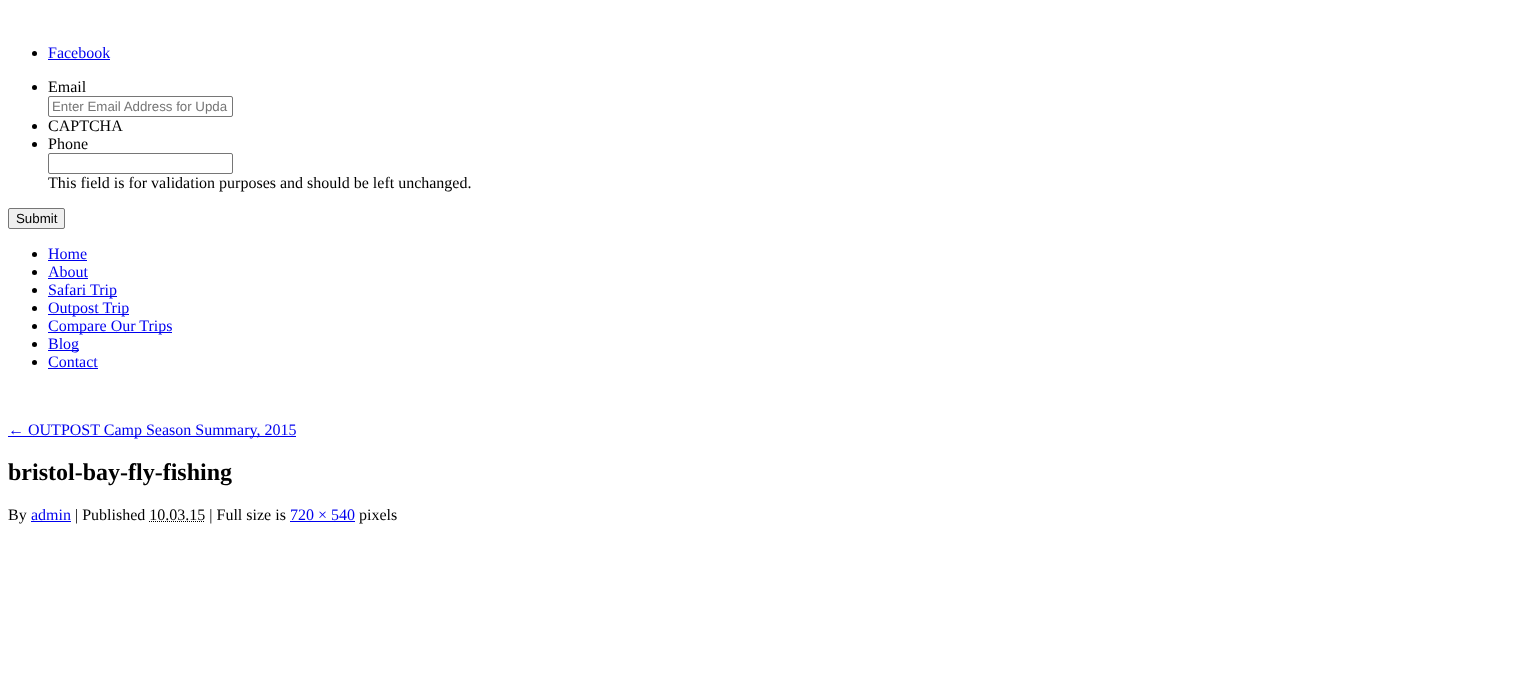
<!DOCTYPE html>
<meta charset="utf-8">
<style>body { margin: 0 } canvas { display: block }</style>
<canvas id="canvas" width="1532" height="675"></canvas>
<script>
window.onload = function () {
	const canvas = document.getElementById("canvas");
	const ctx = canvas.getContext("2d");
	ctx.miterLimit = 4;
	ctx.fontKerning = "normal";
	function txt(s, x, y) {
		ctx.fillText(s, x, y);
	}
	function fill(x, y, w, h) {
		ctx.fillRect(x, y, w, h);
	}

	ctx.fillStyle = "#FFFFFF";
	fill(0, 0, 1532, 675);
	ctx.fillStyle = "#000000";
	ctx.beginPath();
	ctx.arc(34.5, 53.5, 2.5, 0, Math.PI * 2);
	ctx.fill();
	ctx.fillStyle = "#0000EE";
	fill(48, 59, 62, 1);
	ctx.fillStyle = "#000000";
	ctx.beginPath();
	ctx.arc(34.5, 87.5, 2.5, 0, Math.PI * 2);
	ctx.fill();
	ctx.beginPath();
	ctx.roundRect(48.5, 96.5, 184, 20, 1.5);
	ctx.strokeStyle = "#767676";
	ctx.stroke();
	ctx.beginPath();
	ctx.arc(34.5, 126.5, 2.5, 0, Math.PI * 2);
	ctx.fill();
	ctx.beginPath();
	ctx.arc(34.5, 144.5, 2.5, 0, Math.PI * 2);
	ctx.fill();
	ctx.beginPath();
	ctx.roundRect(48.5, 153.5, 184, 20, 1.5);
	ctx.stroke();
	ctx.fillStyle = "#EFEFEF";
	ctx.beginPath();
	ctx.roundRect(8.5, 208.5, 56, 20, 1.5);
	ctx.fill();
	ctx.stroke();
	ctx.fillStyle = "#000000";
	ctx.beginPath();
	ctx.arc(34.5, 254.5, 2.5, 0, Math.PI * 2);
	ctx.fill();
	ctx.fillStyle = "#0000EE";
	fill(48, 260, 39, 1);
	ctx.fillStyle = "#000000";
	ctx.beginPath();
	ctx.arc(34.5, 272.5, 2.5, 0, Math.PI * 2);
	ctx.fill();
	ctx.fillStyle = "#0000EE";
	fill(48, 278, 40, 1);
	ctx.fillStyle = "#000000";
	ctx.beginPath();
	ctx.arc(34.5, 290.5, 2.5, 0, Math.PI * 2);
	ctx.fill();
	ctx.fillStyle = "#0000EE";
	fill(48, 296, 69, 1);
	ctx.fillStyle = "#000000";
	ctx.beginPath();
	ctx.arc(34.5, 308.5, 2.5, 0, Math.PI * 2);
	ctx.fill();
	ctx.fillStyle = "#0000EE";
	fill(48, 314, 81, 1);
	ctx.fillStyle = "#000000";
	ctx.beginPath();
	ctx.arc(34.5, 326.5, 2.5, 0, Math.PI * 2);
	ctx.fill();
	ctx.fillStyle = "#0000EE";
	fill(48, 332, 124, 1);
	ctx.fillStyle = "#000000";
	ctx.beginPath();
	ctx.arc(34.5, 344.5, 2.5, 0, Math.PI * 2);
	ctx.fill();
	ctx.fillStyle = "#0000EE";
	fill(48, 350, 31, 1);
	ctx.fillStyle = "#000000";
	ctx.beginPath();
	ctx.arc(34.5, 362.5, 2.5, 0, Math.PI * 2);
	ctx.fill();
	ctx.fillStyle = "#0000EE";
	fill(48, 368, 50, 1);
	fill(8, 436, 288, 1);
	fill(31, 521, 40, 1);
	fill(290, 521, 65, 1);
	ctx.beginPath();
	ctx.moveTo(149, 521.5);
	ctx.lineTo(205, 521.5);
	ctx.strokeStyle = "#000000";
	ctx.setLineDash([1, 1]);
	ctx.stroke();
	ctx.font = "16px Liberation Serif";
	txt("Facebook", 48, 58);
	ctx.fillStyle = "#000000";
	txt("Email", 48, 92);
	ctx.font = "13.3px Liberation Sans";
	ctx.fillStyle = "#757575";
	txt("Enter Email Address for Upda", 52, 111);
	ctx.font = "16px Liberation Serif";
	ctx.fillStyle = "#000000";
	txt("CAPTCHA", 48, 131);
	txt("Phone", 48, 149);
	txt("This field is for validation purposes and should be left unchanged.", 48, 188);
	ctx.font = "13.3px Liberation Sans";
	txt("Submit", 16, 223);
	ctx.font = "16px Liberation Serif";
	ctx.fillStyle = "#0000EE";
	txt("Home", 48, 259);
	txt("About", 48, 277);
	txt("Safari Trip", 48, 295);
	txt("Outpost Trip", 48, 313);
	txt("Compare Our Trips", 48, 331);
	txt("Blog", 48, 349);
	txt("Contact", 48, 367);
	txt("← OUTPOST Camp Season Summary, 2015", 8, 435);
	ctx.font = "bold 24px Liberation Serif";
	ctx.fillStyle = "#000000";
	txt("bristol-bay-fly-fishing", 8, 480);
	ctx.font = "16px Liberation Serif";
	txt("By", 8, 520);
	ctx.fillStyle = "#0000EE";
	txt("admin", 31, 520);
	ctx.fillStyle = "#000000";
	txt("| Published 10.03.15 | Full size is", 75, 520);
	ctx.fillStyle = "#0000EE";
	txt("720 × 540", 290, 520);
	ctx.fillStyle = "#000000";
	txt("pixels", 359, 520);
};
</script>
